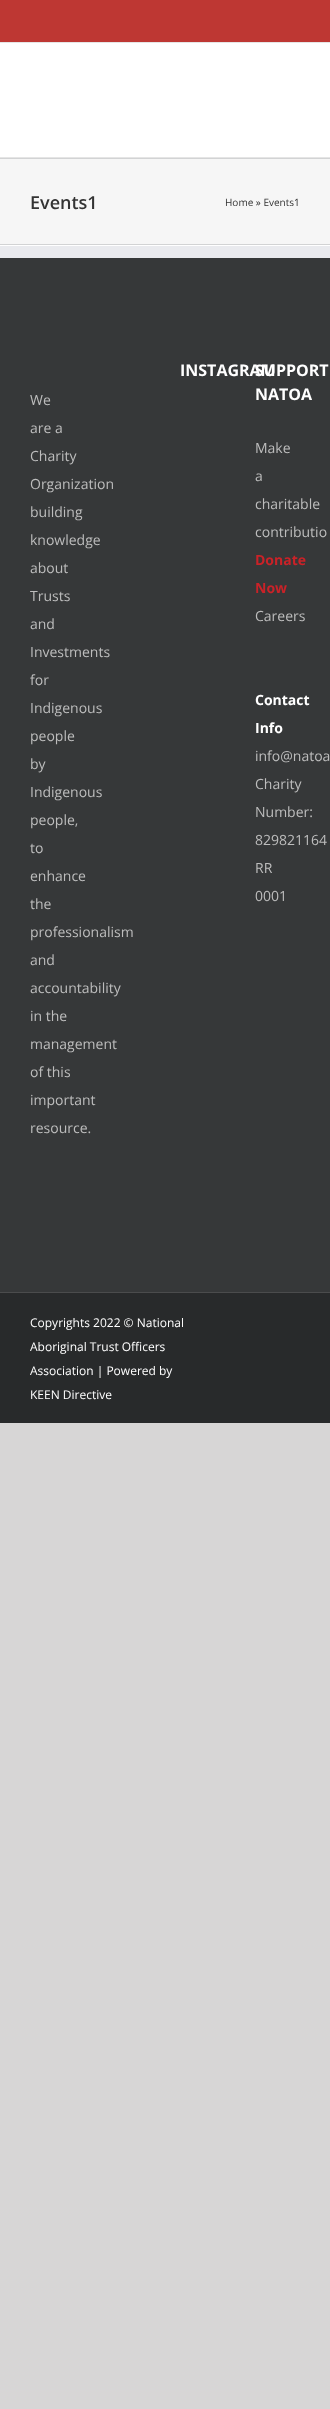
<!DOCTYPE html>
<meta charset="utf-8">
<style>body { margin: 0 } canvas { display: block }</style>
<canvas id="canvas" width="330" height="2409"></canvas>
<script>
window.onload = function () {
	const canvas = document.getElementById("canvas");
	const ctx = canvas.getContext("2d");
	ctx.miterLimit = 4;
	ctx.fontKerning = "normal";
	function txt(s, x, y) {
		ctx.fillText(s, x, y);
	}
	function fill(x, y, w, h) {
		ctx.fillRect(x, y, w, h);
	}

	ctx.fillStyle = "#D7D6D6";
	fill(0, 0, 330, 2409);
	ctx.fillStyle = "#FFFFFF";
	fill(0, 43, 330, 203);
	ctx.fillStyle = "#BE3733";
	fill(0, 0, 330, 42);
	ctx.fillStyle = "#E5E5E5";
	fill(0, 42, 330, 1);
	fill(0, 157, 330, 1);
	ctx.fillStyle = "#F6F6F6";
	fill(0, 159, 330, 85);
	ctx.fillStyle = "#D2D3D4";
	fill(0, 158, 330, 1);
	fill(0, 244, 330, 1);
	ctx.fillStyle = "#363839";
	fill(0, 258, 330, 1034);
	ctx.fillStyle = "#E9EAEE";
	fill(0, 246, 330, 12);
	ctx.fillStyle = "#282A2B";
	fill(0, 1293, 330, 130);
	ctx.fillStyle = "#4B4C4D";
	fill(0, 1292, 330, 1);
	ctx.font = "600 18px Open Sans";
	ctx.fillStyle = "#333333";
	txt("Events1", 30, 209);
	ctx.font = "10px Open Sans";
	txt("Home » Events1", 225, 206);
	ctx.font = "14px Open Sans";
	ctx.fillStyle = "#BDBDBD";
	txt("We", 30, 405);
	txt("are a", 30, 433);
	txt("Charity", 30, 461);
	txt("Organization", 30, 489);
	txt("building", 30, 517);
	txt("knowledge", 30, 545);
	txt("about", 30, 573);
	txt("Trusts", 30, 601);
	txt("and", 30, 629);
	txt("Investments", 30, 657);
	txt("for", 30, 685);
	txt("Indigenous", 30, 713);
	txt("people", 30, 741);
	txt("by", 30, 769);
	txt("Indigenous", 30, 797);
	txt("people,", 30, 825);
	txt("to", 30, 853);
	txt("enhance", 30, 881);
	txt("the", 30, 909);
	txt("professionalism", 30, 937);
	txt("and", 30, 965);
	txt("accountability", 30, 993);
	txt("in the", 30, 1021);
	txt("management", 30, 1049);
	txt("of this", 30, 1077);
	txt("important", 30, 1105);
	txt("resource.", 30, 1133);
	ctx.font = "bold 16px Open Sans";
	ctx.fillStyle = "#FFFFFF";
	txt("INSTAGRAM", 180, 376);
	txt("SUPPORT", 255, 376);
	txt("NATOA", 255, 400);
	ctx.font = "14px Open Sans";
	ctx.fillStyle = "#BDBDBD";
	txt("Make", 255, 453);
	txt("a", 255, 481);
	txt("charitable", 255, 509);
	txt("contributio", 255, 537);
	ctx.font = "bold 14px Open Sans";
	ctx.fillStyle = "#CA2228";
	txt("Donate", 255, 565);
	txt("Now", 255, 593);
	ctx.font = "14px Open Sans";
	ctx.fillStyle = "#BDBDBD";
	txt("Careers", 255, 621);
	ctx.font = "bold 14px Open Sans";
	ctx.fillStyle = "#FFFFFF";
	txt("Contact", 255, 705);
	txt("Info", 255, 733);
	ctx.font = "14px Open Sans";
	ctx.fillStyle = "#BDBDBD";
	txt("info@natoa", 255, 761);
	txt("Charity", 255, 789);
	txt("Number:", 255, 817);
	txt("829821164", 255, 845);
	txt("RR", 255, 873);
	txt("0001", 255, 901);
	ctx.font = "12px Open Sans";
	ctx.fillStyle = "#FFFFFF";
	txt("Copyrights 2022 © National", 30, 1327);
	txt("Aboriginal Trust Officers", 30, 1351);
	txt("Association | Powered by", 30, 1375);
	txt("KEEN Directive", 30, 1399);
};
</script>
